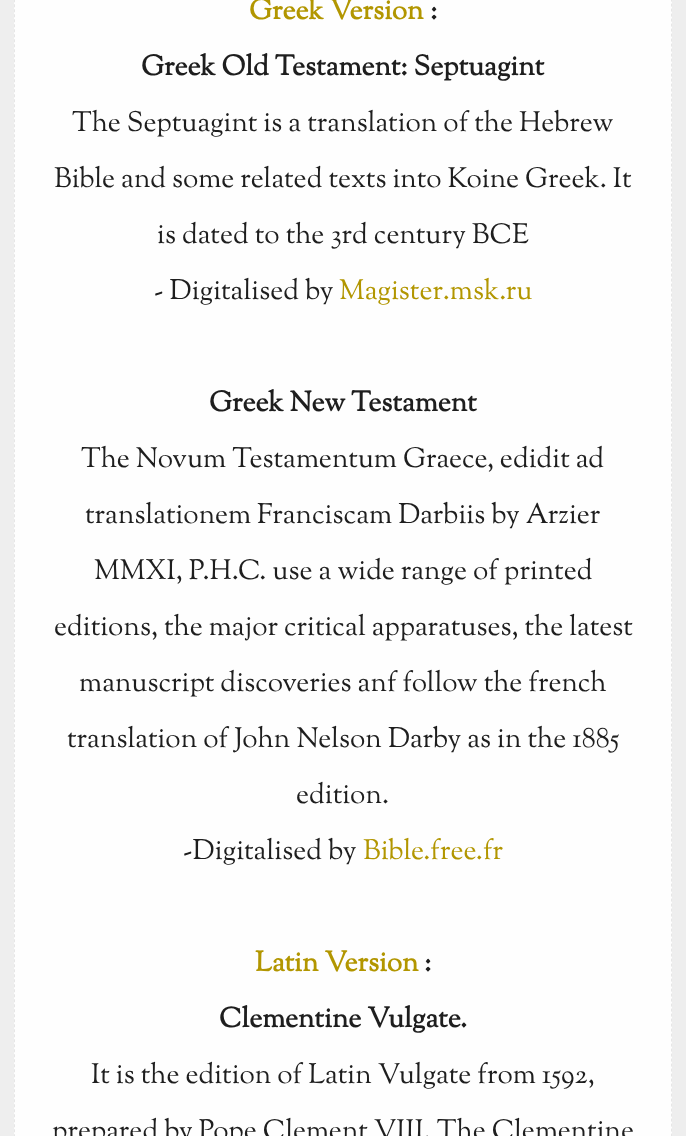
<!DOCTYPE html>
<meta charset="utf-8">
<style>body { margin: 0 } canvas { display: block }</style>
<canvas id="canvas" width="686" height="1136"></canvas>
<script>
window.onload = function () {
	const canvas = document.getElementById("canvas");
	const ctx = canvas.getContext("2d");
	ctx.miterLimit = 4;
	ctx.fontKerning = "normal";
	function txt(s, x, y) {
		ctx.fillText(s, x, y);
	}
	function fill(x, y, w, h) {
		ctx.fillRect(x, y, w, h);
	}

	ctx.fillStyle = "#EEEEEE";
	fill(0, 0, 686, 1136);
	ctx.fillStyle = "#FEFEFE";
	fill(14, 0, 658, 1136);
	ctx.beginPath();
	ctx.moveTo(39, -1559.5);
	ctx.lineTo(647, -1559.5);
	ctx.bezierCurveTo(660.5, -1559.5, 671.5, -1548.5, 671.5, -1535);
	ctx.lineTo(671.5, 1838);
	ctx.bezierCurveTo(671.5, 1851.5, 660.5, 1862.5, 647, 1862.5);
	ctx.lineTo(39, 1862.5);
	ctx.bezierCurveTo(25.5, 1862.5, 14.5, 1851.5, 14.5, 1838);
	ctx.lineTo(14.5, -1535);
	ctx.bezierCurveTo(14.5, -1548.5, 25.5, -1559.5, 39, -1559.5);
	ctx.closePath();
	ctx.strokeStyle = "#E6E6E6";
	ctx.setLineDash([3, 2]);
	ctx.stroke();
	ctx.font = "bold 28px Sorts Mill Goudy";
	ctx.fillStyle = "#B29600";
	txt("Greek Version", 249, 19);
	ctx.fillStyle = "#1E1E1E";
	txt(":", 430, 19);
	txt("Greek Old Testament: Septuagint", 141, 75);
	ctx.font = "28px Sorts Mill Goudy";
	txt("The Septuagint is a translation of the Hebrew", 72, 131);
	txt("Bible and some related texts into Koine Greek. It", 54, 187);
	txt("is dated to the 3rd century BCE", 157, 243);
	txt("- Digitalised by", 154, 299);
	ctx.fillStyle = "#B29600";
	txt("Magister.msk.ru", 339, 299);
	ctx.font = "bold 28px Sorts Mill Goudy";
	ctx.fillStyle = "#1E1E1E";
	txt("Greek New Testament", 209, 411);
	ctx.font = "28px Sorts Mill Goudy";
	txt("The Novum Testamentum Graece, edidit ad", 81, 467);
	txt("translationem Franciscam Darbiis by Arzier", 85, 523);
	txt("MMXI, P.H.C. use a wide range of printed", 94, 579);
	txt("editions, the major critical apparatuses, the latest", 54, 635);
	txt("manuscript discoveries anf follow the french", 79, 691);
	txt("translation of John Nelson Darby as in the 1885", 67, 747);
	txt("edition.", 296, 803);
	txt("-Digitalised by", 183, 859);
	ctx.fillStyle = "#B29600";
	txt("Bible.free.fr", 363, 859);
	ctx.font = "bold 28px Sorts Mill Goudy";
	txt("Latin Version", 255, 971);
	ctx.fillStyle = "#1E1E1E";
	txt(":", 424, 971);
	txt("Clementine Vulgate.", 219, 1027);
	ctx.font = "28px Sorts Mill Goudy";
	txt("It is the edition of Latin Vulgate from 1592,", 91, 1083);
	txt("prepared by Pope Clement VIII. The Clementine", 52, 1139);
};
</script>
